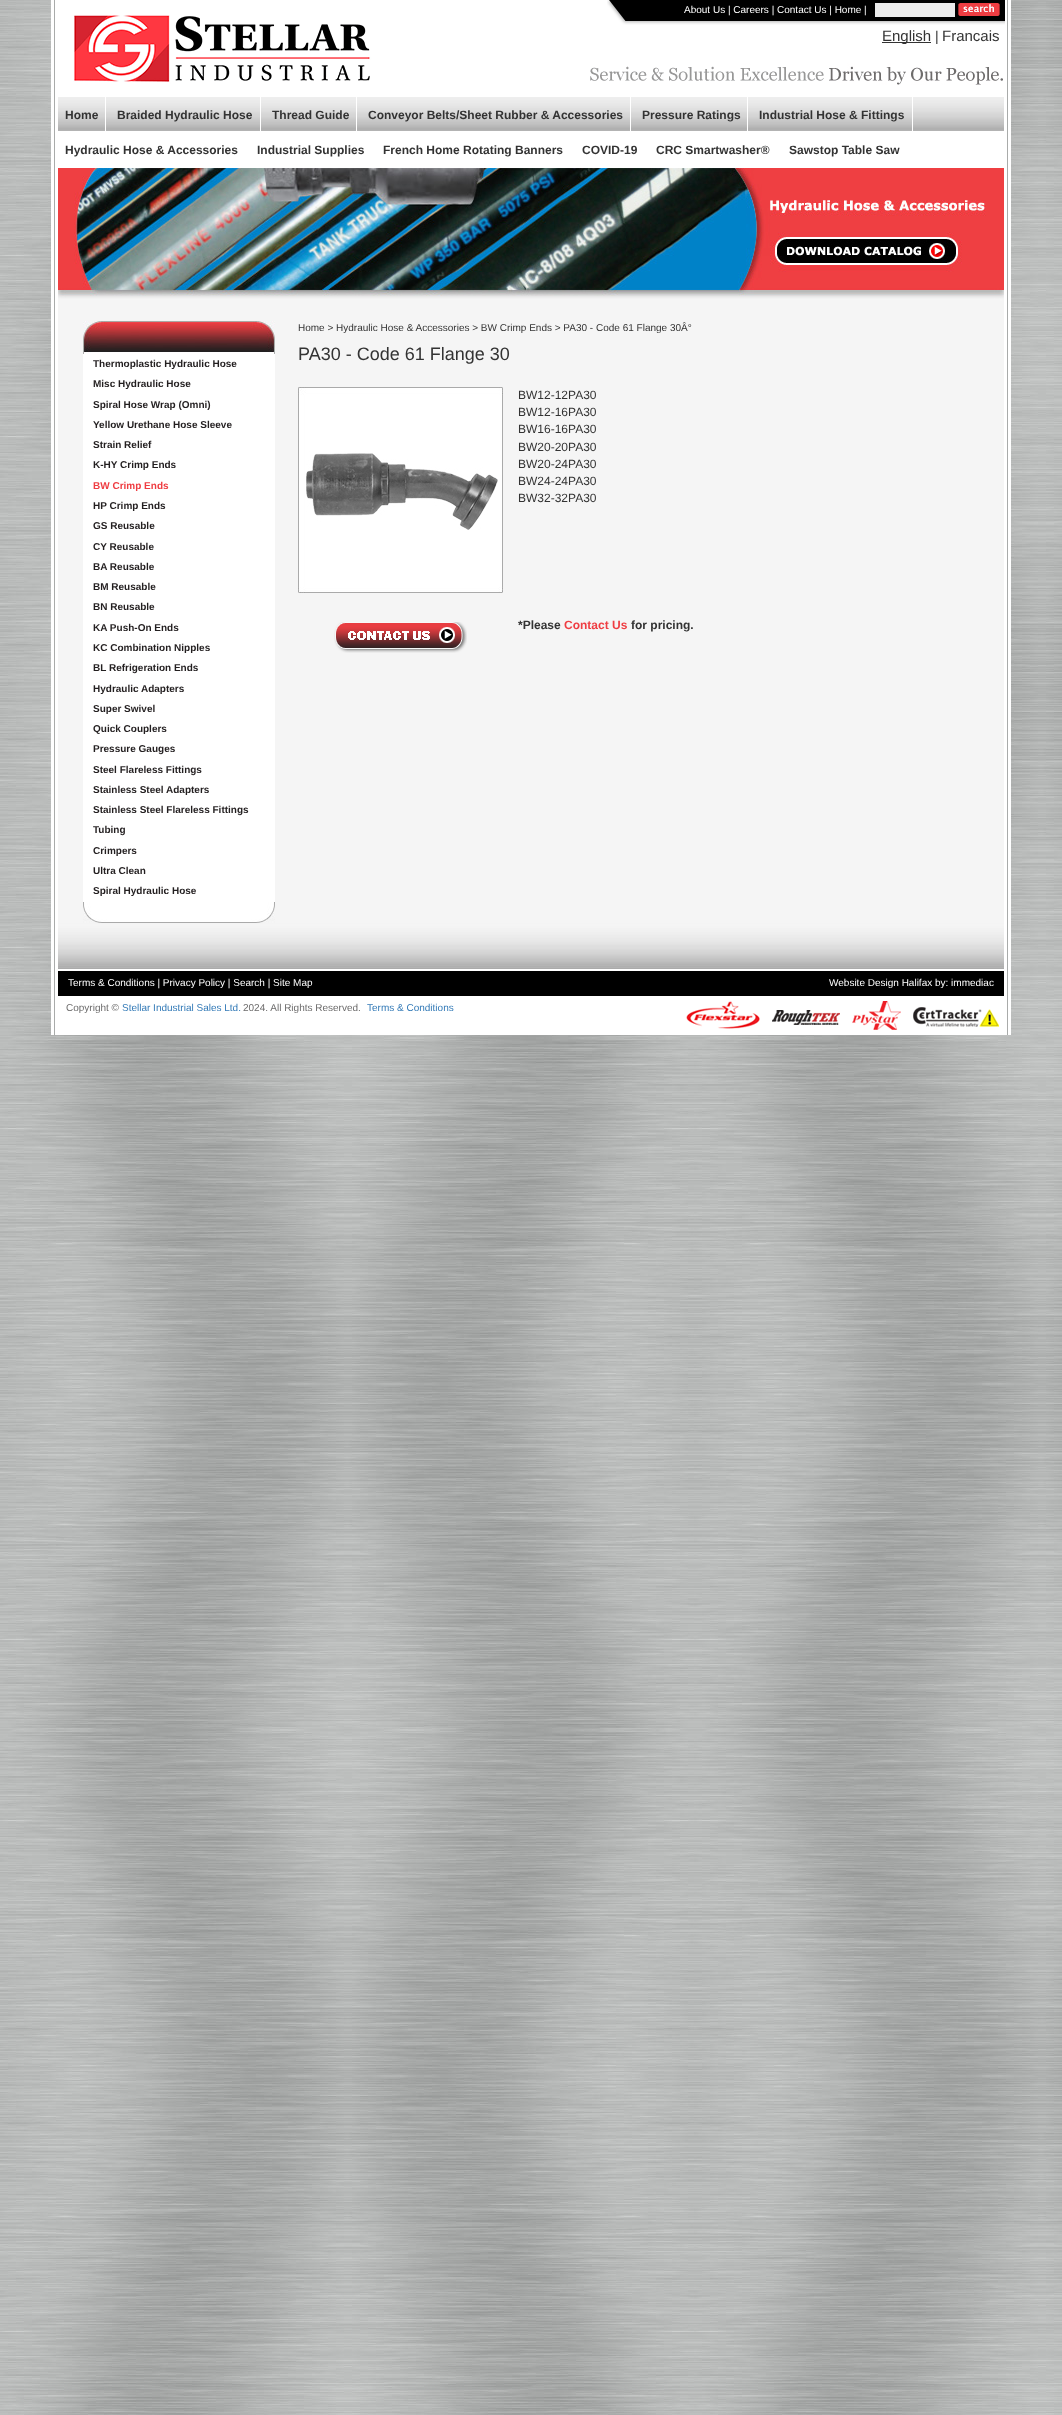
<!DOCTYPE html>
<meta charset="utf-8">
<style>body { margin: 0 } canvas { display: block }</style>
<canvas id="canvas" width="1062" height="2415"></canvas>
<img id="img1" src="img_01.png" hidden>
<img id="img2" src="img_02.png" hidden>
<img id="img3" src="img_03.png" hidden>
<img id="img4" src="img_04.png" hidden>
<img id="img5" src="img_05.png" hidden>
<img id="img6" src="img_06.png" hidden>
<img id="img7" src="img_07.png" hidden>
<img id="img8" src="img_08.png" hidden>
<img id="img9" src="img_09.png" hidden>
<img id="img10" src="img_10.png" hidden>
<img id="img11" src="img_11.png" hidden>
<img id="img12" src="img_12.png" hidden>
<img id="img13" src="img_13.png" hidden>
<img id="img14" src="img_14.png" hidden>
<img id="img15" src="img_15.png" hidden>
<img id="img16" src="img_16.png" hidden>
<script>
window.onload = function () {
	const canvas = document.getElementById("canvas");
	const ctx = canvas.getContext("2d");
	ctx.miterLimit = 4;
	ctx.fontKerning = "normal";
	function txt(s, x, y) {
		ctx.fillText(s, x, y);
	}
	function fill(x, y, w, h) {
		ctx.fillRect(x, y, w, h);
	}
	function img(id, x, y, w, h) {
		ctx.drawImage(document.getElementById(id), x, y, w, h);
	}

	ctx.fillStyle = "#FFFFFF";
	fill(0, 0, 1062, 2415);
	img("img1", 0, 0, 1062, 2415);
	img("img2", 51, 0, 960, 1035);
	img("img3", 73, 15, 930, 70);
	img("img4", 607, 0, 398, 25);
	ctx.fillStyle = "#EBEBEB";
	fill(875, 3, 80, 14);
	img("img5", 958, 3, 42, 13);
	ctx.fillStyle = "#333333";
	fill(882, 42, 49, 1);
	img("img6", 58, 97, 946, 34);
	ctx.fillStyle = "#FFFFFF";
	fill(105, 97, 1, 35);
	fill(260, 97, 1, 35);
	fill(356, 97, 1, 35);
	fill(630, 97, 1, 35);
	fill(747, 97, 1, 35);
	fill(912, 97, 1, 35);
	img("img7", 58, 168, 946, 133);
	ctx.fillStyle = "#F5F5F5";
	fill(58, 301, 946, 622);
	img("img8", 83, 321, 192, 33);
	ctx.fillStyle = "#FFFFFF";
	fill(83, 354, 192, 548);
	img("img9", 83, 902, 192, 21);
	img("img10", 298, 387, 205, 206);
	img("img11", 334, 622, 133, 31);
	img("img12", 58, 923, 946, 46);
	ctx.fillStyle = "#000000";
	fill(58, 971, 946, 25);
	img("img13", 686, 1001, 74, 28);
	img("img14", 772, 1010, 68, 15);
	img("img15", 852, 1001, 49, 29);
	img("img16", 913, 1007, 86, 20);
	ctx.font = "10px Liberation Sans";
	ctx.fillStyle = "#FFFFFF";
	txt("About Us | Careers | Contact Us | Home |", 684, 13);
	ctx.font = "15px Liberation Sans";
	ctx.fillStyle = "#333333";
	txt("English", 882, 41);
	ctx.font = "14px Liberation Sans";
	txt("|", 935, 41);
	ctx.font = "15px Liberation Sans";
	txt("Francais", 942, 41);
	ctx.font = "bold 12px Liberation Sans";
	txt("Home", 65, 119);
	txt("Braided Hydraulic Hose", 117, 119);
	txt("Thread Guide", 272, 119);
	txt("Conveyor Belts/Sheet Rubber & Accessories", 368, 119);
	txt("Pressure Ratings", 642, 119);
	txt("Industrial Hose & Fittings", 759, 119);
	txt("Hydraulic Hose & Accessories", 65, 154);
	txt("Industrial Supplies", 257, 154);
	txt("French Home Rotating Banners", 383, 154);
	txt("COVID-19", 582, 154);
	txt("CRC Smartwasher®", 656, 154);
	txt("Sawstop Table Saw", 789, 154);
	ctx.font = "bold 10px Liberation Sans";
	ctx.fillStyle = "#231F20";
	txt("Thermoplastic Hydraulic Hose", 93, 367);
	txt("Misc Hydraulic Hose", 93, 387);
	txt("Spiral Hose Wrap (Omni)", 93, 408);
	txt("Yellow Urethane Hose Sleeve", 93, 428);
	txt("Strain Relief", 93, 448);
	txt("K-HY Crimp Ends", 93, 468);
	ctx.fillStyle = "#EF3D42";
	txt("BW Crimp Ends", 93, 489);
	ctx.fillStyle = "#231F20";
	txt("HP Crimp Ends", 93, 509);
	txt("GS Reusable", 93, 529);
	txt("CY Reusable", 93, 550);
	txt("BA Reusable", 93, 570);
	txt("BM Reusable", 93, 590);
	txt("BN Reusable", 93, 610);
	txt("KA Push-On Ends", 93, 631);
	txt("KC Combination Nipples", 93, 651);
	txt("BL Refrigeration Ends", 93, 671);
	txt("Hydraulic Adapters", 93, 692);
	txt("Super Swivel", 93, 712);
	txt("Quick Couplers", 93, 732);
	txt("Pressure Gauges", 93, 752);
	txt("Steel Flareless Fittings", 93, 773);
	txt("Stainless Steel Adapters", 93, 793);
	txt("Stainless Steel Flareless Fittings", 93, 813);
	txt("Tubing", 93, 833);
	txt("Crimpers", 93, 854);
	txt("Ultra Clean", 93, 874);
	txt("Spiral Hydraulic Hose", 93, 894);
	ctx.font = "10px Liberation Sans";
	ctx.fillStyle = "#333333";
	txt("Home > Hydraulic Hose & Accessories > BW Crimp Ends > PA30 - Code 61 Flange 30Â°", 298, 331);
	ctx.font = "18px Liberation Sans";
	txt("PA30 - Code 61 Flange 30", 298, 360);
	ctx.font = "12px Liberation Sans";
	txt("BW12-12PA30", 518, 399);
	txt("BW12-16PA30", 518, 416);
	txt("BW16-16PA30", 518, 433);
	txt("BW20-20PA30", 518, 451);
	txt("BW20-24PA30", 518, 468);
	txt("BW24-24PA30", 518, 485);
	txt("BW32-32PA30", 518, 502);
	ctx.font = "bold 12px Liberation Sans";
	txt("*Please", 518, 629);
	ctx.fillStyle = "#EF3D42";
	txt("Contact Us", 564, 629);
	ctx.fillStyle = "#333333";
	txt("for pricing.", 631, 629);
	ctx.font = "10px Liberation Sans";
	ctx.fillStyle = "#FFFFFF";
	txt("Terms & Conditions | Privacy Policy | Search | Site Map", 68, 986);
	txt("Website Design Halifax by: immediac", 829, 986);
	ctx.fillStyle = "#6C6B6B";
	txt("Copyright ©", 66, 1011);
	ctx.fillStyle = "#337AB7";
	txt("Stellar Industrial Sales Ltd.", 122, 1011);
	ctx.fillStyle = "#6C6B6B";
	txt("2024. All Rights Reserved.", 243, 1011);
	ctx.fillStyle = "#337AB7";
	txt("Terms & Conditions", 367, 1011);
};
</script>
